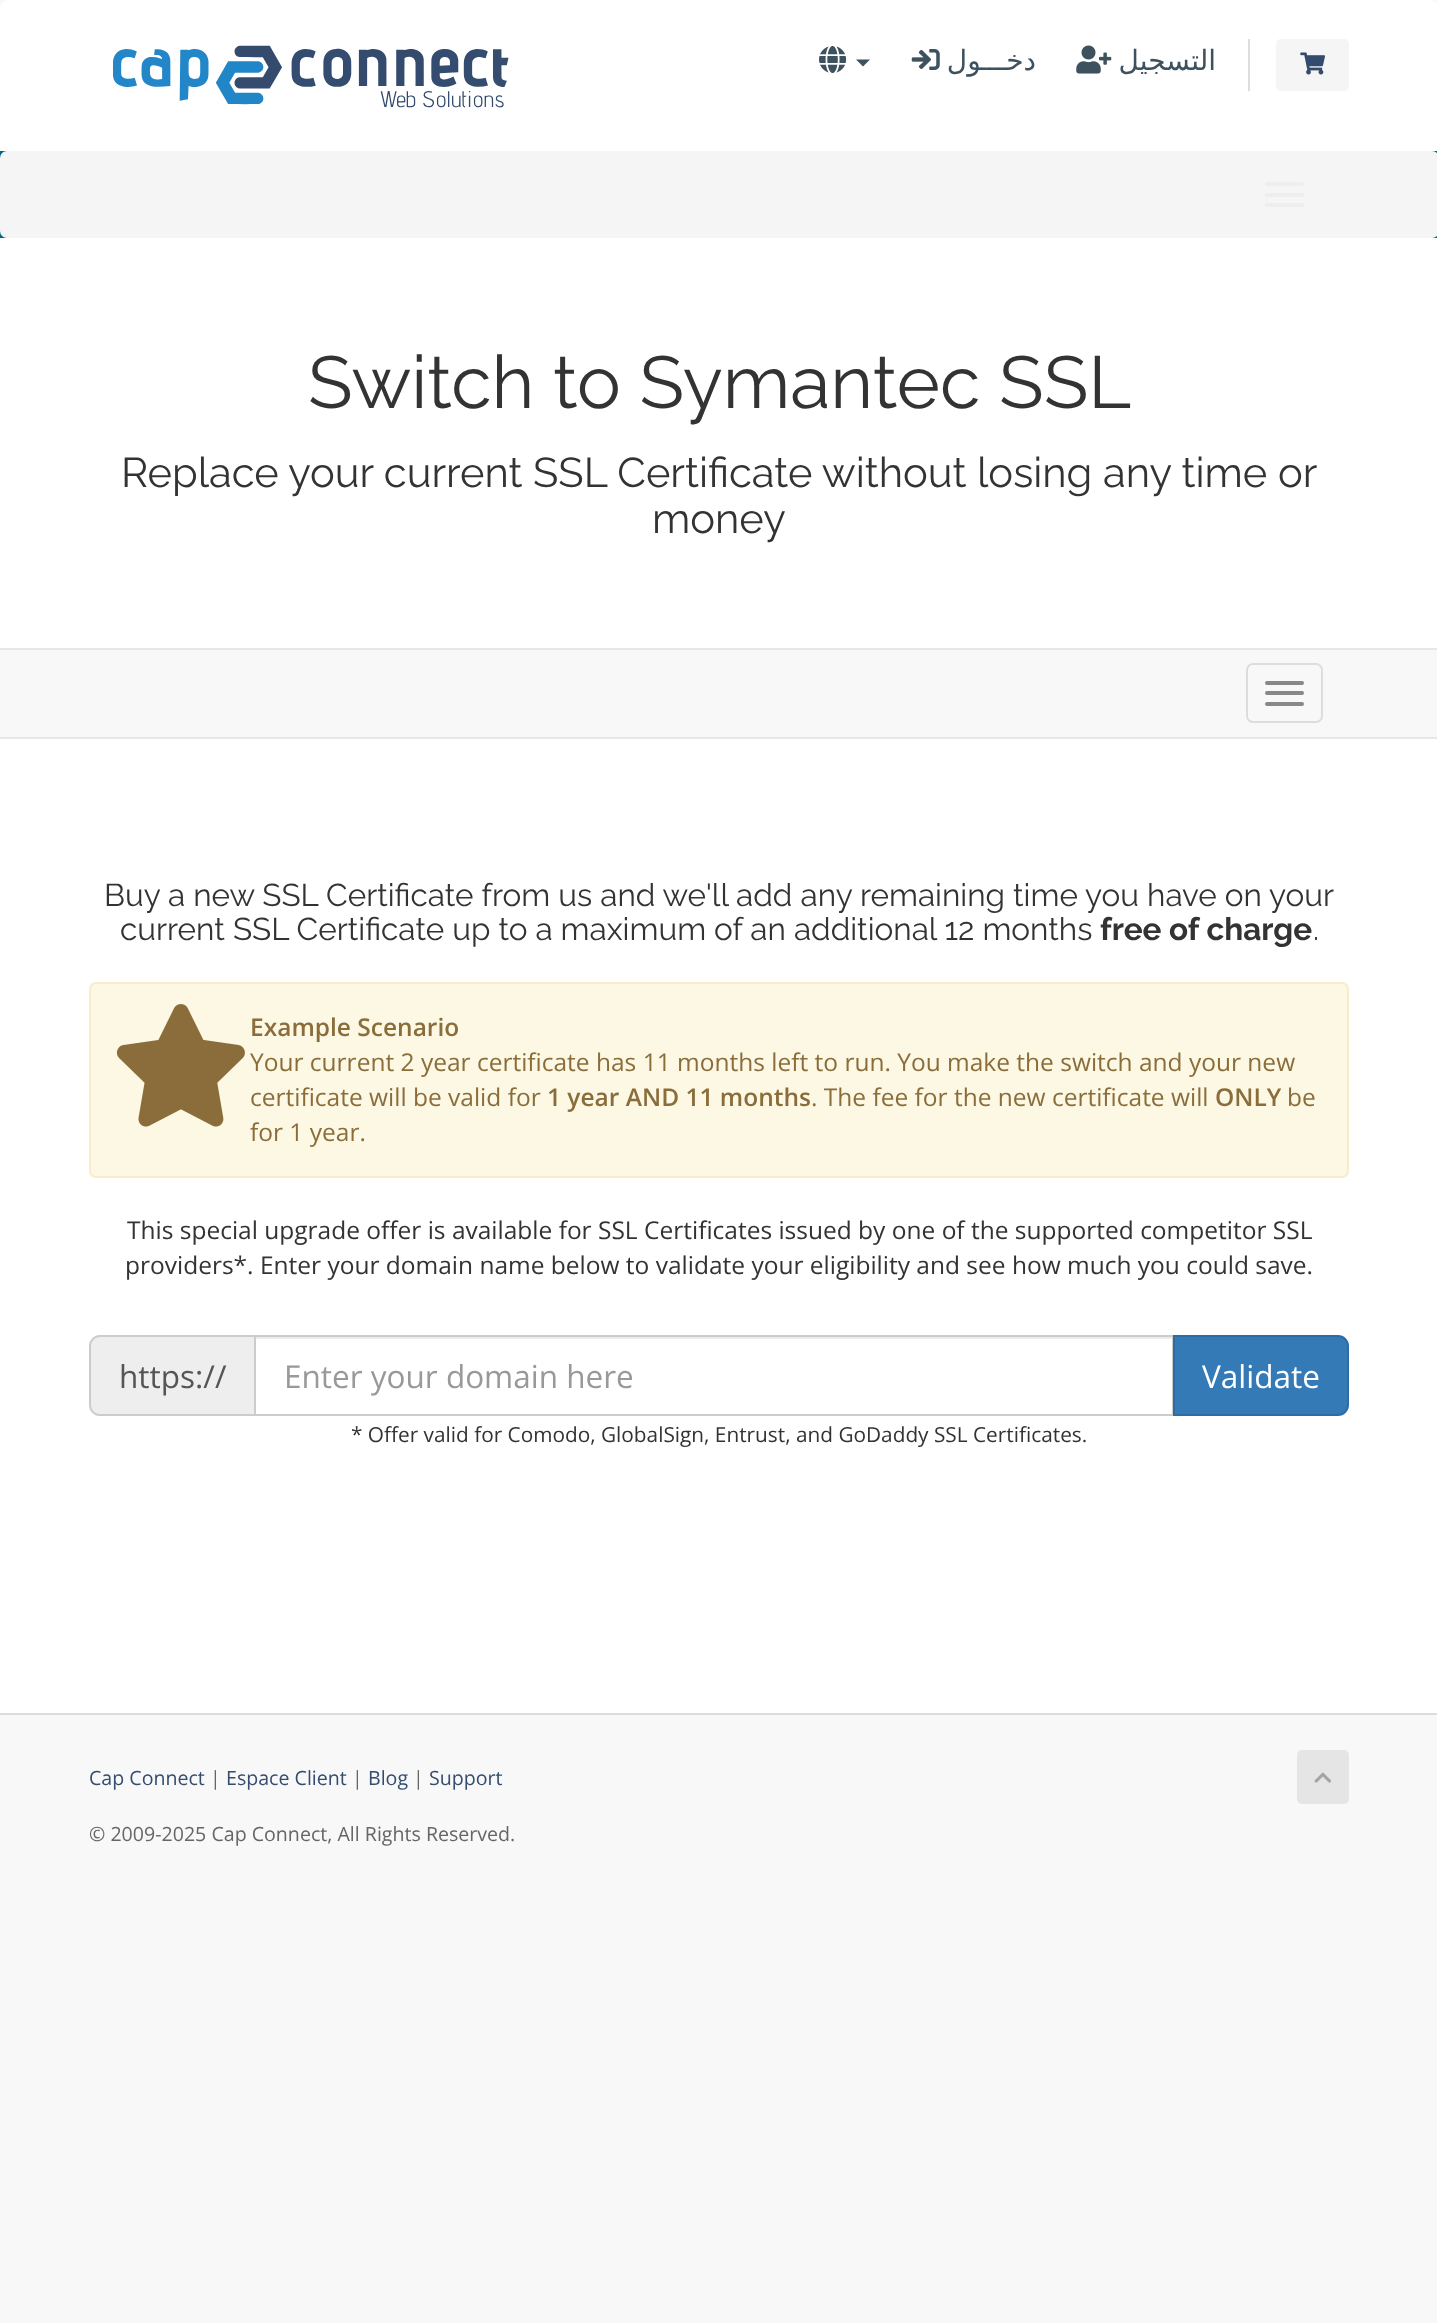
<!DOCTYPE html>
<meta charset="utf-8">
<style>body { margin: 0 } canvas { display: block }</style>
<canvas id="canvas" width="1437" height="2323"></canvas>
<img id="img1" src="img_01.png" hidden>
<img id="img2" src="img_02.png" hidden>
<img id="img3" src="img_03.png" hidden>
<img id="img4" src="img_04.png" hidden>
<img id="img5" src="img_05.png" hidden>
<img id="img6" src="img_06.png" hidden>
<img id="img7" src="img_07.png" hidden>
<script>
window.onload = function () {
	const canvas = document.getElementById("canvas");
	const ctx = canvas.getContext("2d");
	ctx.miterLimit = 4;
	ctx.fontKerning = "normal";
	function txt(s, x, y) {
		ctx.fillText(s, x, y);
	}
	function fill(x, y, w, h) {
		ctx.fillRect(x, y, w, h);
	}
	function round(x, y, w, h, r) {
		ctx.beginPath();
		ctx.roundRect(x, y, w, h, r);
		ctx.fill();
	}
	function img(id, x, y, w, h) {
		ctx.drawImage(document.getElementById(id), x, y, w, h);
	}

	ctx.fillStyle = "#F8F8F8";
	fill(0, 0, 1437, 2323);
	ctx.fillStyle = "#FFFFFF";
	ctx.beginPath();
	ctx.moveTo(9, 0);
	ctx.lineTo(1430, 0);
	ctx.bezierCurveTo(1435, 0, 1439, 4, 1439, 9);
	ctx.lineTo(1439, 151);
	ctx.lineTo(0, 151);
	ctx.lineTo(0, 9);
	ctx.bezierCurveTo(0, 4, 4, 0, 9, 0);
	ctx.closePath();
	ctx.fill();
	img("img1", 112, 45, 397, 63);
	img("img2", 819, 46, 28, 27);
	ctx.fillStyle = "#3D515E";
	ctx.beginPath();
	ctx.moveTo(856, 59.5);
	ctx.lineTo(870, 59.5);
	ctx.lineTo(863, 66.5);
	ctx.closePath();
	ctx.fill();
	img("img3", 911, 49, 29, 21);
	img("img4", 1076, 45, 36, 29);
	ctx.fillStyle = "#DDDDDD";
	fill(1248, 39, 2, 52);
	ctx.fillStyle = "#F5F5F5";
	round(1276, 39, 73, 52, 5);
	img("img5", 1300, 52, 25, 23);
	ctx.fillStyle = "#006687";
	fill(0, 151, 1437, 87);
	ctx.fillStyle = "#F5F5F5";
	round(0, 151, 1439, 87, 7);
	ctx.fillStyle = "#EEEEEE";
	round(1265, 182, 39, 4, 2);
	round(1265, 193, 39, 4, 2);
	round(1265, 203, 39, 4, 2);
	ctx.fillStyle = "#FFFFFF";
	fill(0, 238, 1437, 1475);
	ctx.fillStyle = "#F8F8F8";
	fill(0, 650, 1437, 87);
	ctx.fillStyle = "#E7E7E7";
	fill(0, 648, 1437, 2);
	fill(0, 737, 1437, 2);
	ctx.beginPath();
	ctx.roundRect(1247, 664, 75, 58, 6);
	ctx.strokeStyle = "#DDDDDD";
	ctx.lineWidth = 2;
	ctx.stroke();
	ctx.fillStyle = "#888888";
	round(1265, 681, 39, 4, 2);
	round(1265, 691, 39, 4, 2);
	round(1265, 702, 39, 4, 2);
	ctx.fillStyle = "#FCF8E3";
	ctx.beginPath();
	ctx.roundRect(90, 983, 1258, 194, 6);
	ctx.fill();
	ctx.strokeStyle = "#FAEBCC";
	ctx.stroke();
	img("img6", 116, 1004, 129, 123);
	ctx.fillStyle = "#EEEEEE";
	ctx.beginPath();
	ctx.roundRect(89, 1335, 165, 81, [11, 0, 0, 11]);
	ctx.fill();
	ctx.fillStyle = "#CCCCCC";
	ctx.beginPath();
	ctx.moveTo(100, 1335);
	ctx.lineTo(254, 1335);
	ctx.lineTo(254, 1416);
	ctx.lineTo(100, 1416);
	ctx.bezierCurveTo(94, 1416, 89, 1411, 89, 1405);
	ctx.lineTo(89, 1346);
	ctx.bezierCurveTo(89, 1340, 94, 1335, 100, 1335);
	ctx.closePath();
	ctx.moveTo(100, 1337);
	ctx.lineTo(254, 1337);
	ctx.lineTo(254, 1414);
	ctx.lineTo(100, 1414);
	ctx.bezierCurveTo(95, 1414, 91, 1410, 91, 1405);
	ctx.lineTo(91, 1346);
	ctx.bezierCurveTo(91, 1341, 95, 1337, 100, 1337);
	ctx.closePath();
	ctx.fill("evenodd");
	ctx.fillStyle = "#ECECEC";
	fill(256, 1337, 917, 2);
	ctx.strokeStyle = "#CCCCCC";
	ctx.strokeRect(255, 1336, 918, 79);
	ctx.fillStyle = "#337AB7";
	ctx.beginPath();
	ctx.roundRect(1174, 1336, 174, 79, [0, 10, 10, 0]);
	ctx.fill();
	ctx.strokeStyle = "#2E6DA4";
	ctx.stroke();
	ctx.fillStyle = "#DDDDDD";
	fill(0, 1713, 1437, 2);
	ctx.fillStyle = "#E5E5E5";
	round(1297, 1750, 52, 54, 5);
	img("img7", 1314, 1772, 17, 11);
	ctx.direction = "rtl";
	ctx.font = "28px DejaVu Sans";
	ctx.fillStyle = "#3D515E";
	txt("دخـــول", 1036, 70);
	txt("التسجيل", 1216, 70);
	ctx.direction = "ltr";
	ctx.font = "73.5px Raleway";
	ctx.fillStyle = "#333333";
	txt("Switch to Symantec SSL", 308, 408);
	ctx.font = "41.65px Raleway";
	txt("Replace your current SSL Certificate without losing any time or", 121, 487);
	txt("money", 652, 533);
	ctx.font = "31.5px Raleway";
	txt("Buy a new SSL Certificate from us and we'll add any remaining time you have on your", 104, 906);
	txt("current SSL Certificate up to a maximum of an additional 12 months", 120, 940);
	ctx.font = "bold 31.5px Raleway";
	txt("free of charge", 1100, 940);
	ctx.font = "31.5px Raleway";
	txt(".", 1313, 940);
	ctx.font = "600 24.5px Open Sans";
	ctx.fillStyle = "#8A6D3B";
	txt("Example Scenario", 250, 1036);
	ctx.font = "24.5px Open Sans";
	txt("Your current 2 year certificate has 11 months left to run. You make the switch and your new", 250, 1071);
	txt("certificate will be valid for", 250, 1106);
	ctx.font = "600 24.5px Open Sans";
	txt("1 year AND 11 months", 547, 1106);
	ctx.font = "24.5px Open Sans";
	txt(". The fee for the new certificate will", 811, 1106);
	ctx.font = "600 24.5px Open Sans";
	txt("ONLY", 1215, 1106);
	ctx.font = "24.5px Open Sans";
	txt("be", 1287, 1106);
	txt("for 1 year.", 250, 1141);
	ctx.fillStyle = "#333333";
	txt("This special upgrade offer is available for SSL Certificates issued by one of the supported competitor SSL", 127, 1239);
	txt("providers*. Enter your domain name below to validate your eligibility and see how much you could save.", 125, 1274);
	ctx.font = "31.5px Open Sans";
	ctx.fillStyle = "#555555";
	txt("https://", 119, 1388);
	ctx.fillStyle = "#999999";
	txt("Enter your domain here", 284, 1388);
	ctx.fillStyle = "#FFFFFF";
	txt("Validate", 1202, 1388);
	ctx.font = "20.8px Open Sans";
	ctx.fillStyle = "#333333";
	txt("* Offer valid for Comodo, GlobalSign, Entrust, and GoDaddy SSL Certificates.", 351, 1442);
	ctx.font = "19.6px Open Sans";
	ctx.fillStyle = "#344D6F";
	txt("Cap Connect", 89, 1785);
	ctx.fillStyle = "#666666";
	txt("|", 210, 1785);
	ctx.fillStyle = "#344D6F";
	txt("Espace Client", 226, 1785);
	ctx.fillStyle = "#666666";
	txt("|", 352, 1785);
	ctx.fillStyle = "#344D6F";
	txt("Blog", 368, 1785);
	ctx.fillStyle = "#666666";
	txt("|", 413, 1785);
	ctx.fillStyle = "#344D6F";
	txt("Support", 429, 1785);
	ctx.fillStyle = "#666666";
	txt("© 2009-2025 Cap Connect, All Rights Reserved.", 89, 1841);
};
</script>
